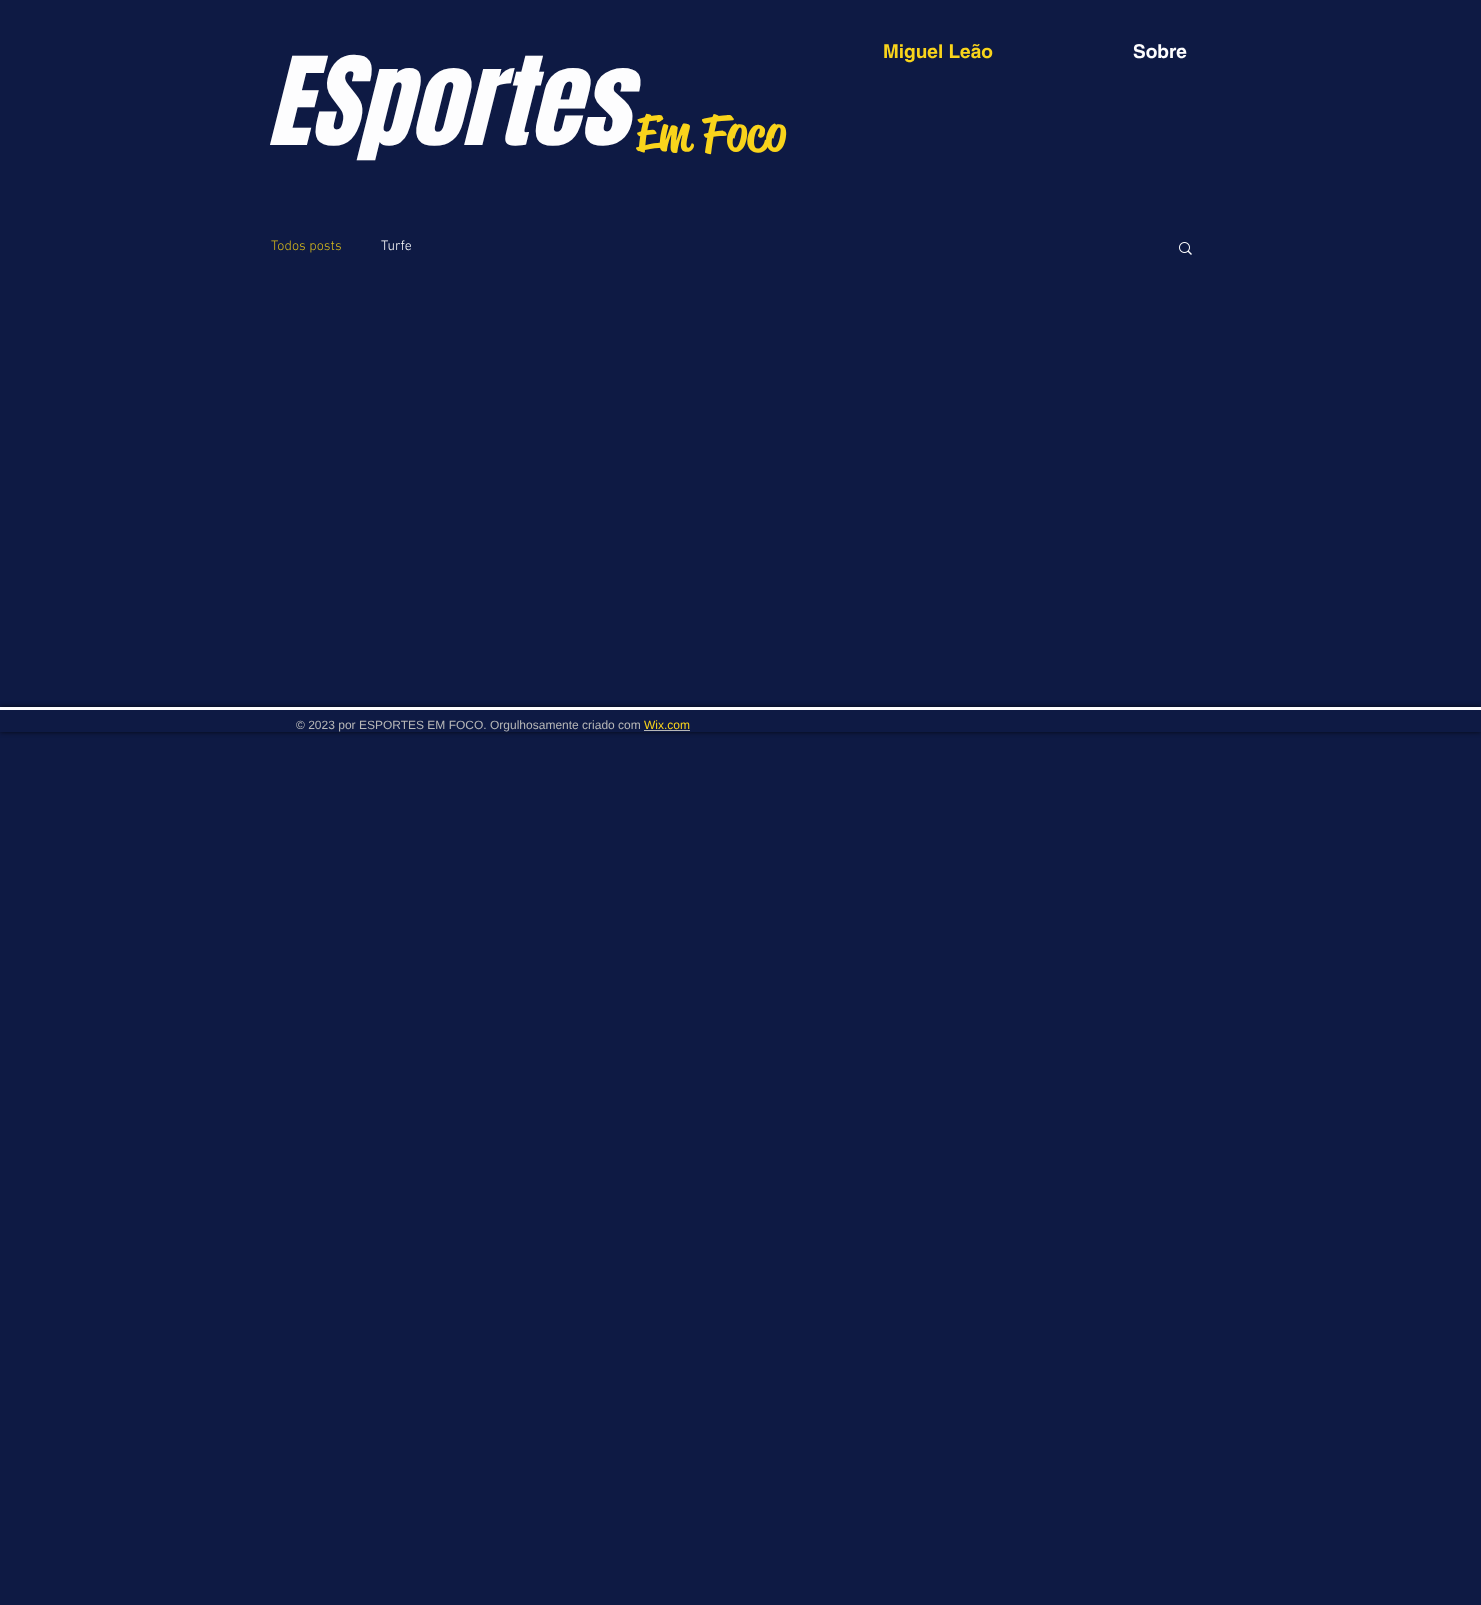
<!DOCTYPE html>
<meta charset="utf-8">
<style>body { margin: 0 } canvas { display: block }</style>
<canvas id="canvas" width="1481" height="1605"></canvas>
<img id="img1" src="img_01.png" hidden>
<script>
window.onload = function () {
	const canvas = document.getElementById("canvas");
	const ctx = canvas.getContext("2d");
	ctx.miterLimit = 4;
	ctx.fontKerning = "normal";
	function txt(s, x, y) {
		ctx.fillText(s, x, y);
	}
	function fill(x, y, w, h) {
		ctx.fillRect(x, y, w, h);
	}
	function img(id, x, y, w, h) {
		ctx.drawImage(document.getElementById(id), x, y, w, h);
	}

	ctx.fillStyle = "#0E1A44";
	fill(0, 0, 1481, 1605);
	img("img1", 1179, 242, 13, 13);
	ctx.save();
	ctx.beginPath();
	ctx.moveTo(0, 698);
	ctx.lineTo(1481, 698);
	ctx.lineTo(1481, 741);
	ctx.lineTo(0, 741);
	ctx.closePath();
	ctx.moveTo(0, 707);
	ctx.lineTo(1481, 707);
	ctx.lineTo(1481, 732);
	ctx.lineTo(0, 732);
	ctx.closePath();
	ctx.clip("evenodd");
	ctx.fillStyle = "rgba(0, 0, 0, 0.7)";
	ctx.filter = "blur(2.5px)";
	ctx.beginPath();
	ctx.rect(0, 707, 1481, 25);
	ctx.fill();
	ctx.filter = "none";
	ctx.restore();
	ctx.fillStyle = "#FDFDFE";
	fill(0, 707, 1481, 3);
	ctx.fillStyle = "#B7B7B7";
	fill(644, 730, 46, 1);
	ctx.font = "italic 104px Anton";
	ctx.fillStyle = "#FDFDFE";
	txt("ESportes", 266, 145);
	ctx.font = "500 50px 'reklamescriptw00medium'";
	ctx.fillStyle = "#F9D41B";
	txt("Em Foco", 636, 150);
	ctx.font = "bold 19px helvetica";
	txt("Miguel Leão", 883, 58);
	ctx.fillStyle = "#FDFDFE";
	txt("Sobre", 1133, 58);
	ctx.font = "300 14px 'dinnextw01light'";
	ctx.fillStyle = "#D3B71C";
	txt("Todos posts", 271, 250);
	ctx.fillStyle = "#FDFDFE";
	txt("Turfe", 381, 250);
	ctx.font = "12px Liberation Sans";
	ctx.fillStyle = "#B7B7B7";
	txt("© 2023 por ESPORTES EM FOCO. Orgulhosamente criado com", 296, 729);
	ctx.fillStyle = "#F9D41B";
	txt("Wix.com", 644, 729);
};
</script>
